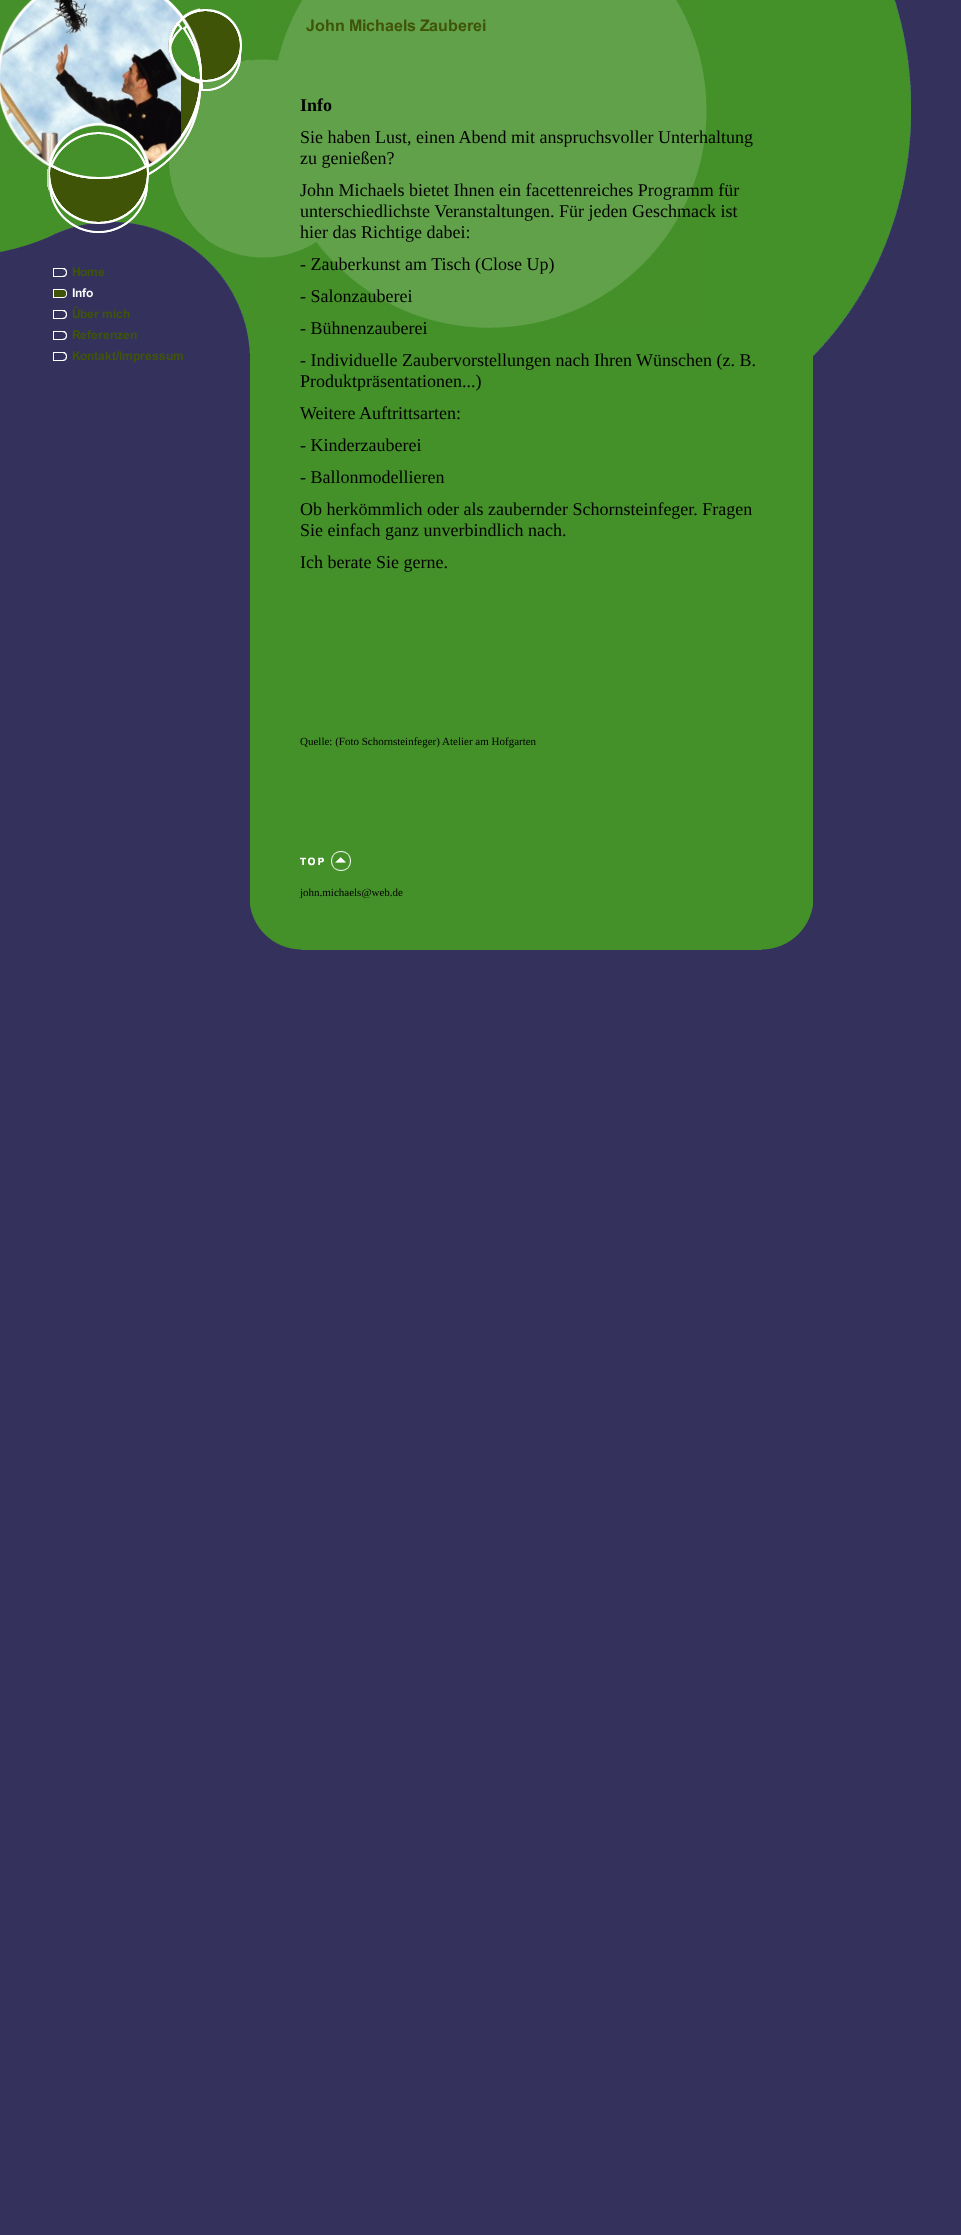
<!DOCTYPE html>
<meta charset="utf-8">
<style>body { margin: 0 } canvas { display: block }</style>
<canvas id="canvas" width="961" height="2235"></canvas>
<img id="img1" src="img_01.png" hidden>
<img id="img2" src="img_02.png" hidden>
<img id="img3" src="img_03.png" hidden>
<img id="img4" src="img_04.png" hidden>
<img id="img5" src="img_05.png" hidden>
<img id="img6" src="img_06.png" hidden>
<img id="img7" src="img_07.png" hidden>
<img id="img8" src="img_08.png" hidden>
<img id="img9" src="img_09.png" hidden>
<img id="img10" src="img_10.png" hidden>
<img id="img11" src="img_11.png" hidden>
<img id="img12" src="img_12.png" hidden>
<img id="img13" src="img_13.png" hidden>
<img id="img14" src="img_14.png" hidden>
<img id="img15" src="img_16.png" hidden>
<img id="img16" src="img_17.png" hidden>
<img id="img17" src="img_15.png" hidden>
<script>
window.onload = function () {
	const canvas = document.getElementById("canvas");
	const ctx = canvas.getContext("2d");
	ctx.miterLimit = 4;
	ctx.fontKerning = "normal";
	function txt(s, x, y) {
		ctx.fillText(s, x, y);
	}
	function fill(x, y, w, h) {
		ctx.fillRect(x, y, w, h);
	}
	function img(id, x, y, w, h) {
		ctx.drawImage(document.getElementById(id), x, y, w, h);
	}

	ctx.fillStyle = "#34315D";
	fill(0, 0, 961, 2235);
	img("img1", 49, 0, 201, 353);
	img("img2", 0, 0, 200, 167);
	img("img3", 0, 167, 49, 85);
	img("img4", 200, 9, 50, 91);
	img("img5", 49, 167, 140, 54);
	img("img6", 49, 221, 159, 39);
	img("img7", 53, 267, 52, 10);
	img("img8", 53, 288, 40, 10);
	img("img9", 53, 306, 77, 13);
	img("img10", 53, 330, 84, 10);
	img("img11", 53, 351, 130, 12);
	ctx.fillStyle = "#449029";
	fill(250, 0, 563, 950);
	img("img12", 250, 0, 457, 328);
	img("img13", 306, 19, 180, 13);
	img("img14", 300, 851, 51, 20);
	img("img15", 762, 905, 51, 45);
	img("img16", 813, 0, 98, 356);
	ctx.font = "bold 18px Liberation Serif";
	ctx.fillStyle = "#000000";
	txt("Info", 300, 111);
	ctx.font = "18px Liberation Serif";
	txt("Sie haben Lust, einen Abend mit anspruchsvoller Unterhaltung", 300, 143);
	txt("zu genießen?", 300, 164);
	txt("John Michaels bietet Ihnen ein facettenreiches Programm für", 300, 196);
	txt("unterschiedlichste Veranstaltungen. Für jeden Geschmack ist", 300, 217);
	txt("hier das Richtige dabei:", 300, 238);
	txt("- Zauberkunst am Tisch (Close Up)", 300, 270);
	txt("- Salonzauberei", 300, 302);
	txt("- Bühnenzauberei", 300, 334);
	txt("- Individuelle Zaubervorstellungen nach Ihren Wünschen (z. B.", 300, 366);
	txt("Produktpräsentationen...)", 300, 387);
	txt("Weitere Auftrittsarten:", 300, 419);
	txt("- Kinderzauberei", 300, 451);
	txt("- Ballonmodellieren", 300, 483);
	txt("Ob herkömmlich oder als zaubernder Schornsteinfeger. Fragen", 300, 515);
	txt("Sie einfach ganz unverbindlich nach.", 300, 536);
	txt("Ich berate Sie gerne.", 300, 568);
	ctx.font = "11px Liberation Serif";
	txt("Quelle: (Foto Schornsteinfeger) Atelier am Hofgarten", 300, 745);
	txt("john.michaels@web.de", 300, 896);
	img("img17", 250, 898, 51, 52);
};
</script>
